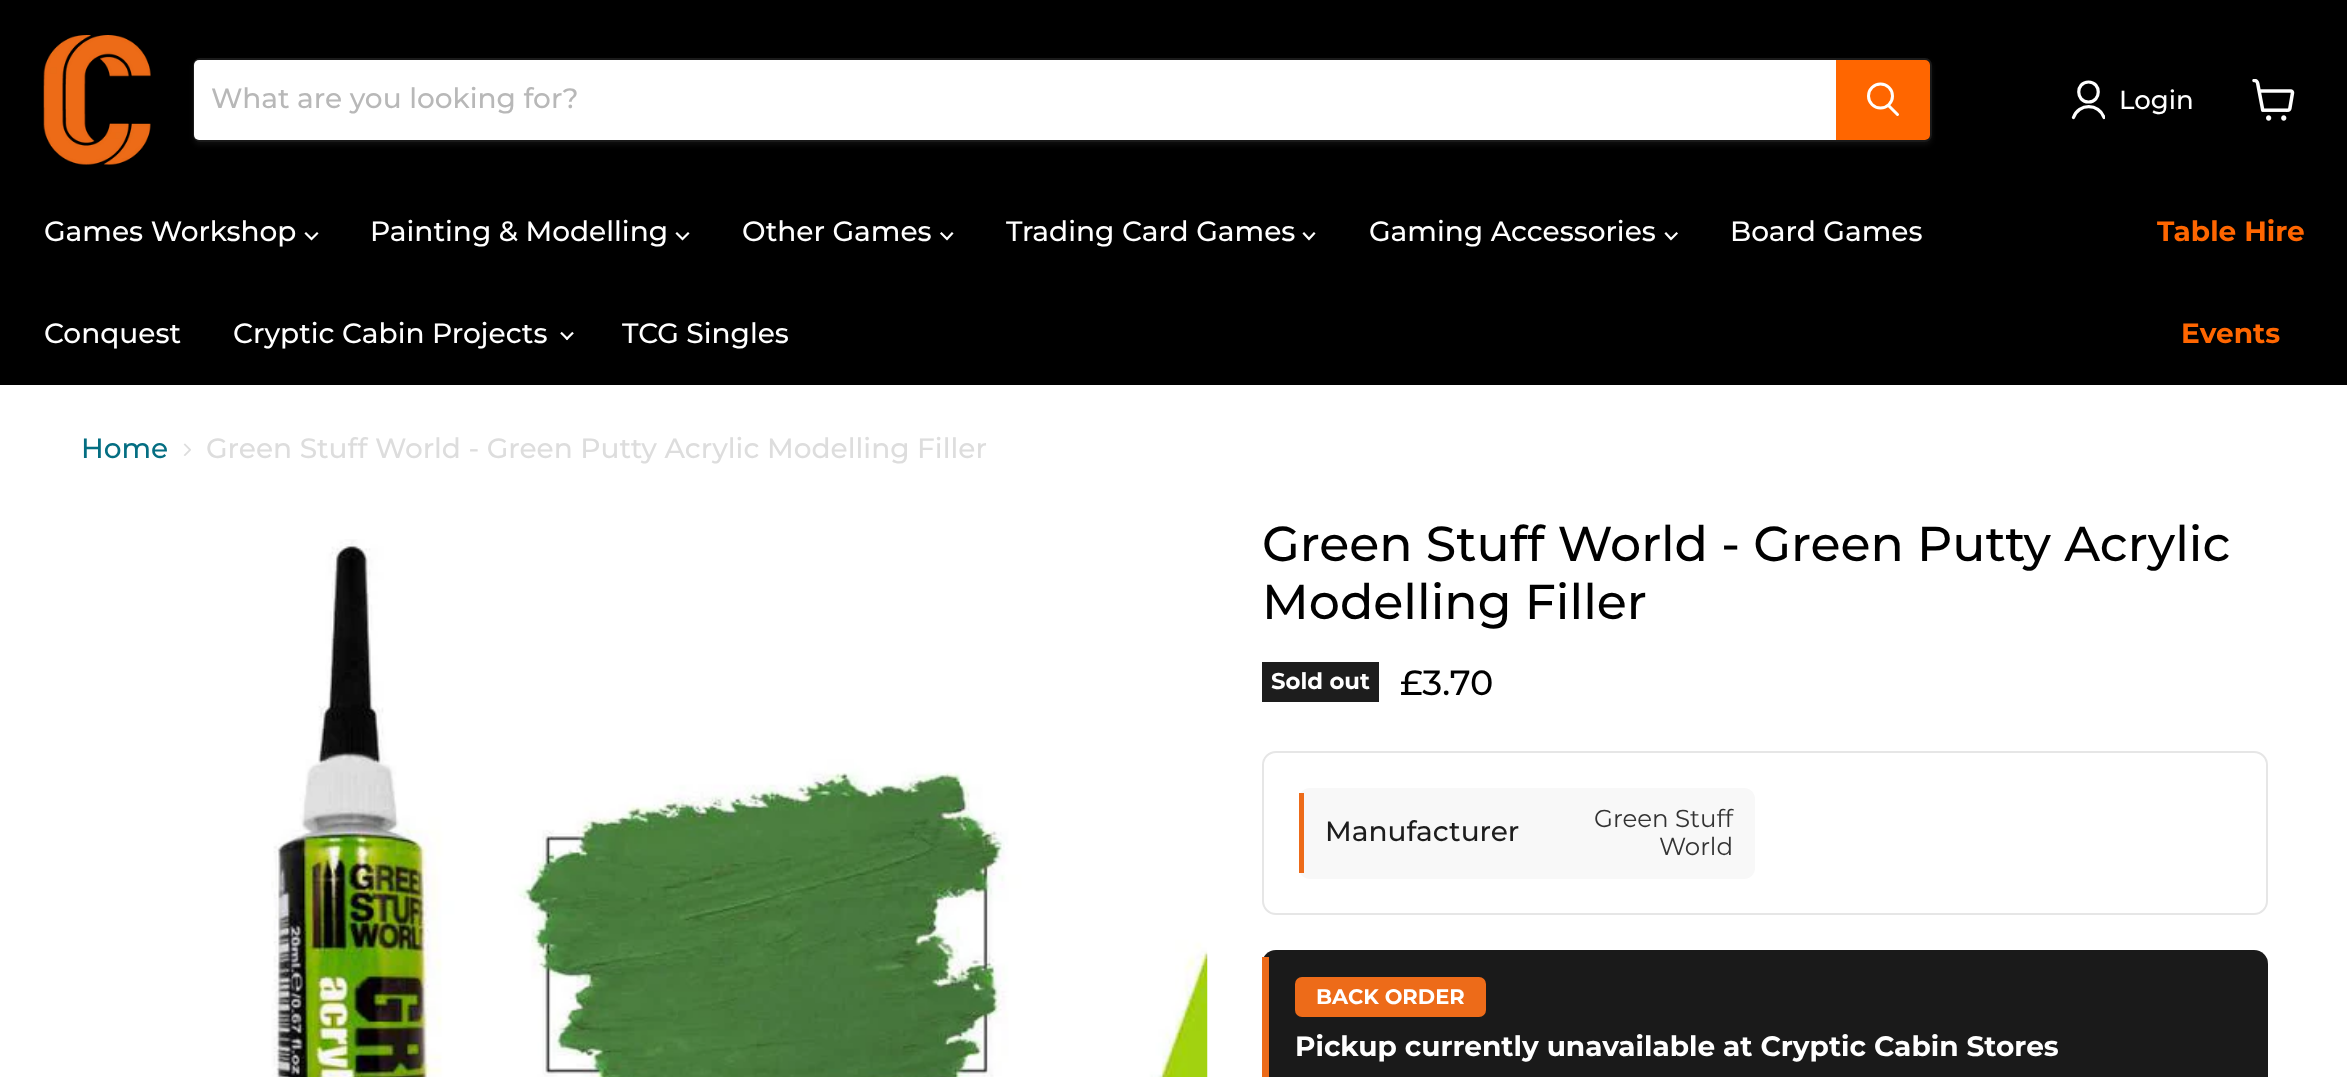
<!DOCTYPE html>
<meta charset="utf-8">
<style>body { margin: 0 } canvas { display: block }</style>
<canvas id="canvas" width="2347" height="1077"></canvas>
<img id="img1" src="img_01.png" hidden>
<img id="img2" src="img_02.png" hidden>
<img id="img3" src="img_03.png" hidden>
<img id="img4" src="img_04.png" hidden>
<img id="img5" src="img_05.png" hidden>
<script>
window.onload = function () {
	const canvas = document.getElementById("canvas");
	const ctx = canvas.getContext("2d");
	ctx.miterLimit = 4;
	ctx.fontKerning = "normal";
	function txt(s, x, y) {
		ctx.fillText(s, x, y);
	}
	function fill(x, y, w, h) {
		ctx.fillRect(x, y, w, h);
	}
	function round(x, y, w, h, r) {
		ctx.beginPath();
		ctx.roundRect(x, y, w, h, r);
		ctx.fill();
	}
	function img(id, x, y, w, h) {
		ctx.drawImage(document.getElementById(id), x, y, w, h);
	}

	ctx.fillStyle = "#FFFFFF";
	fill(0, 0, 2347, 1077);
	ctx.fillStyle = "#000000";
	fill(0, 0, 2347, 385);
	img("img1", 43, 35, 108, 130);
	ctx.save();
	ctx.beginPath();
	ctx.moveTo(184, 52);
	ctx.lineTo(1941, 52);
	ctx.lineTo(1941, 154);
	ctx.lineTo(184, 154);
	ctx.closePath();
	ctx.moveTo(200, 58);
	ctx.lineTo(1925, 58);
	ctx.bezierCurveTo(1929, 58, 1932, 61, 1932, 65);
	ctx.lineTo(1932, 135);
	ctx.bezierCurveTo(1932, 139, 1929, 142, 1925, 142);
	ctx.lineTo(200, 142);
	ctx.bezierCurveTo(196, 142, 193, 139, 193, 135);
	ctx.lineTo(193, 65);
	ctx.bezierCurveTo(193, 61, 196, 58, 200, 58);
	ctx.closePath();
	ctx.clip("evenodd");
	ctx.fillStyle = "rgba(128, 128, 128, 0.11)";
	ctx.filter = "blur(2.5px)";
	ctx.beginPath();
	ctx.roundRect(193, 61, 1739, 84, 7);
	ctx.fill();
	ctx.filter = "none";
	ctx.restore();
	ctx.beginPath();
	ctx.roundRect(194, 59, 1737, 82, 6);
	ctx.strokeStyle = "rgba(128, 128, 128, 0.2)";
	ctx.lineWidth = 2;
	ctx.stroke();
	ctx.fillStyle = "#FFFFFF";
	ctx.beginPath();
	ctx.roundRect(194, 60, 1642, 80, [5, 0, 0, 5]);
	ctx.fill();
	ctx.fillStyle = "#FF6600";
	ctx.beginPath();
	ctx.roundRect(1837, 61, 92, 78, [0, 4, 4, 0]);
	ctx.fill();
	ctx.strokeStyle = "#FF6600";
	ctx.stroke();
	ctx.beginPath();
	ctx.moveTo(1897.5, 114.5);
	ctx.lineTo(1889, 106);
	ctx.strokeStyle = "#FFFFFF";
	ctx.lineWidth = 3;
	ctx.lineCap = "round";
	ctx.stroke();
	ctx.beginPath();
	ctx.arc(1880.5, 96, 12, 0, Math.PI * 2);
	ctx.stroke();
	ctx.beginPath();
	ctx.moveTo(2088.5, 102);
	ctx.bezierCurveTo(2101.5, 102, 2101.5, 82, 2088.5, 82);
	ctx.bezierCurveTo(2075.5, 82, 2075.5, 102, 2088.5, 102);
	ctx.closePath();
	ctx.lineWidth = 3.2;
	ctx.lineJoin = "round";
	ctx.stroke();
	ctx.save();
	ctx.beginPath();
	ctx.rect(2070, 79, 35, 42);
	ctx.clip();
	ctx.beginPath();
	ctx.moveTo(2104, 117.5);
	ctx.bezierCurveTo(2099, 103, 2078.5, 103, 2073.5, 117.5);
	ctx.stroke();
	ctx.restore();
	img("img2", 2252, 79, 43, 42);
	ctx.beginPath();
	ctx.moveTo(311.5, 239);
	ctx.lineTo(317, 233.5);
	ctx.moveTo(311.5, 239);
	ctx.lineTo(306, 233.5);
	ctx.lineWidth = 2.2;
	ctx.lineCap = "square";
	ctx.lineJoin = "miter";
	ctx.stroke();
	ctx.beginPath();
	ctx.moveTo(682.5, 239);
	ctx.lineTo(688, 233.5);
	ctx.moveTo(682.5, 239);
	ctx.lineTo(677, 233.5);
	ctx.stroke();
	ctx.beginPath();
	ctx.moveTo(947, 239);
	ctx.lineTo(952, 233.5);
	ctx.moveTo(947, 239);
	ctx.lineTo(941.5, 233.5);
	ctx.stroke();
	ctx.beginPath();
	ctx.moveTo(1309, 239);
	ctx.lineTo(1314, 233.5);
	ctx.moveTo(1309, 239);
	ctx.lineTo(1304, 233.5);
	ctx.stroke();
	ctx.beginPath();
	ctx.moveTo(1671, 239);
	ctx.lineTo(1676.5, 233.5);
	ctx.moveTo(1671, 239);
	ctx.lineTo(1666, 233.5);
	ctx.stroke();
	img("img3", 560, 331, 14, 10);
	img("img4", 183, 443, 8, 13);
	img("img5", 271, 539, 937, 538);
	ctx.fillStyle = "#1D1D1D";
	fill(1262, 662, 117, 40);
	ctx.beginPath();
	ctx.roundRect(1263, 752, 1004, 162, 13);
	ctx.strokeStyle = "#E6E6E6";
	ctx.lineWidth = 2;
	ctx.stroke();
	ctx.fillStyle = "#F8F8F8";
	round(1299, 788, 456, 91, 11);
	ctx.fillStyle = "#ED6B19";
	fill(1299, 793, 5, 80);
	ctx.fillStyle = "#1A1A1A";
	round(1262, 950, 1006, 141, 14);
	ctx.fillStyle = "#ED6B19";
	fill(1262, 957, 7, 120);
	round(1295, 977, 191, 40, 7);
	ctx.font = "500 28px Montserrat";
	ctx.fillStyle = "#B8B8B8";
	txt("What are you looking for?", 211, 108);
	ctx.font = "500 26px Montserrat";
	ctx.fillStyle = "#FFFFFF";
	txt("Login", 2119, 109);
	ctx.font = "500 28px Montserrat";
	txt("Games Workshop", 44, 241);
	txt("Painting & Modelling", 370, 241);
	txt("Other Games", 742, 241);
	txt("Trading Card Games", 1006, 241);
	txt("Gaming Accessories", 1369, 241);
	txt("Board Games", 1730, 241);
	txt("Conquest", 44, 343);
	txt("Cryptic Cabin Projects", 233, 343);
	txt("TCG Singles", 622, 343);
	ctx.font = "bold 28px Montserrat";
	ctx.fillStyle = "#FF6600";
	txt("Table Hire", 2157, 241);
	txt("Events", 2181, 343);
	ctx.font = "500 28px Montserrat";
	ctx.fillStyle = "#046E82";
	txt("Home", 81, 458);
	ctx.fillStyle = "#DDDDDD";
	txt("Green Stuff World - Green Putty Acrylic Modelling Filler", 206, 458);
	ctx.font = "500 49px Montserrat";
	ctx.fillStyle = "#000000";
	txt("Green Stuff World - Green Putty Acrylic", 1262, 561);
	txt("Modelling Filler", 1262, 619);
	ctx.font = "bold 22.75px Montserrat";
	ctx.fillStyle = "#FFFFFF";
	txt("Sold out", 1271, 689);
	ctx.font = "500 35px Montserrat";
	ctx.fillStyle = "#000000";
	txt("£3.70", 1400, 695);
	ctx.font = "500 28px Montserrat";
	ctx.fillStyle = "#1D1D1D";
	txt("Manufacturer", 1325, 841);
	ctx.font = "24.5px Montserrat";
	ctx.fillStyle = "#333333";
	txt("Green Stuff", 1594, 827);
	txt("World", 1659, 855);
	ctx.font = "bold 21px Montserrat";
	ctx.fillStyle = "#FFFFFF";
	txt("BACK ORDER", 1316, 1004);
	ctx.font = "bold 28px Montserrat";
	txt("Pickup currently unavailable at Cryptic Cabin Stores", 1295, 1056);
};
</script>
